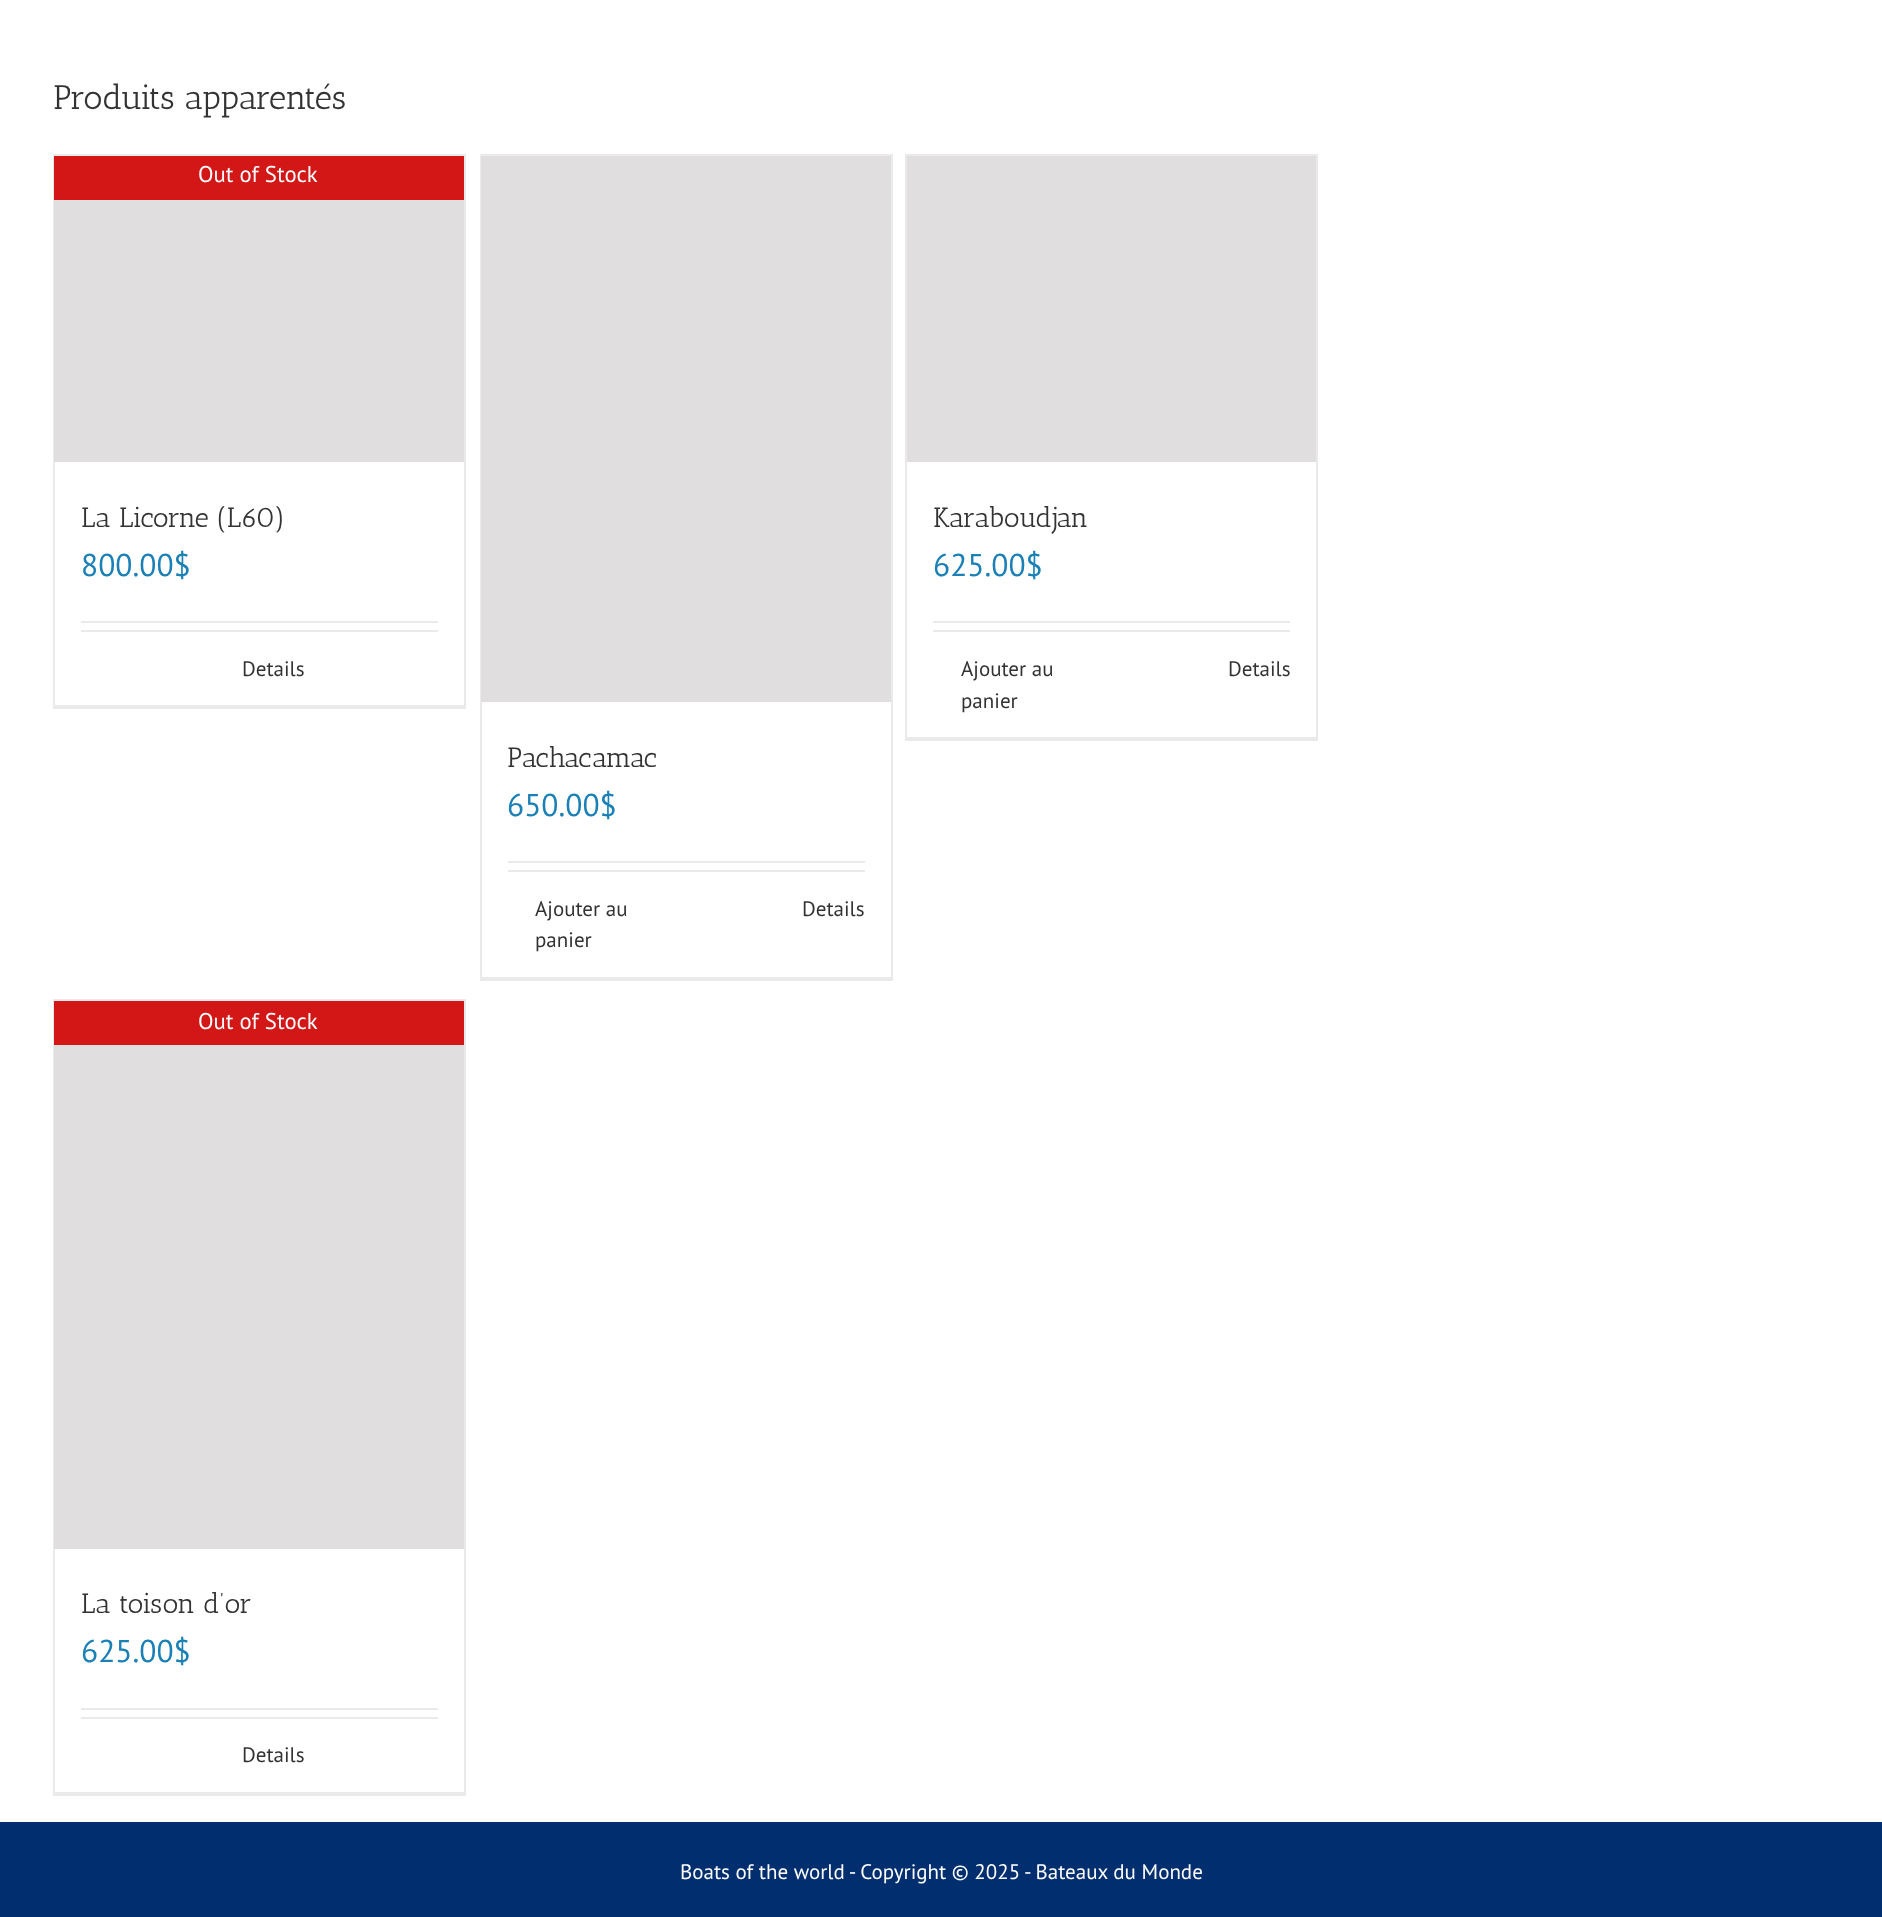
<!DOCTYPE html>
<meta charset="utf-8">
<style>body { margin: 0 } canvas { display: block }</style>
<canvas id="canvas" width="1882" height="1917"></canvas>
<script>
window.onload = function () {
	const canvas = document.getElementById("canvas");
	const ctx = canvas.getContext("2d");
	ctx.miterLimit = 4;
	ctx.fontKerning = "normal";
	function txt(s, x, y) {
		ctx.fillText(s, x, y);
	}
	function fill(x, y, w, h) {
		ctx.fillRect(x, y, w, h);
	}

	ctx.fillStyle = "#FFFFFF";
	fill(0, 0, 1882, 1917);
	ctx.fillStyle = "#EBEAEA";
	fill(53, 154, 413, 2);
	fill(464, 154, 2, 555);
	fill(53, 705, 413, 4);
	fill(53, 154, 2, 555);
	ctx.fillStyle = "#D31616";
	fill(54, 156, 410, 44);
	ctx.fillStyle = "#E0DEDE";
	fill(54, 200, 410, 262);
	ctx.fillStyle = "#EBEAEA";
	fill(81, 621, 357, 2);
	fill(81, 630, 357, 2);
	fill(905, 154, 413, 2);
	fill(1316, 154, 2, 586);
	fill(905, 737, 413, 4);
	fill(905, 154, 2, 586);
	ctx.fillStyle = "#E0DEDE";
	fill(907, 156, 409, 306);
	ctx.fillStyle = "#EBEAEA";
	fill(933, 621, 357, 2);
	fill(933, 630, 357, 2);
	fill(480, 154, 413, 2);
	fill(891, 154, 2, 826);
	fill(480, 977, 413, 4);
	fill(480, 154, 2, 826);
	ctx.fillStyle = "#E0DEDE";
	fill(481, 156, 410, 546);
	ctx.fillStyle = "#EBEAEA";
	fill(508, 861, 357, 2);
	fill(508, 870, 357, 2);
	fill(53, 999, 413, 2);
	fill(464, 999, 2, 797);
	fill(53, 1792, 413, 4);
	fill(53, 999, 2, 797);
	ctx.fillStyle = "#D31616";
	fill(54, 1001, 410, 44);
	ctx.fillStyle = "#E0DEDE";
	fill(54, 1045, 410, 504);
	ctx.fillStyle = "#EBEAEA";
	fill(81, 1708, 357, 2);
	fill(81, 1717, 357, 2);
	ctx.fillStyle = "#012E6F";
	fill(0, 1822, 1882, 95);
	ctx.font = "34.1px Antic Slab";
	ctx.fillStyle = "#333333";
	txt("Produits apparentés", 53, 109);
	ctx.font = "22.75px PT Sans";
	ctx.fillStyle = "#FFFFFF";
	txt("Out of Stock", 198, 182);
	ctx.font = "28px Antic Slab";
	ctx.fillStyle = "#333333";
	txt("La Licorne (L60)", 81, 527);
	ctx.font = "31.5px PT Sans";
	ctx.fillStyle = "#1A80B6";
	txt("800.00$", 81, 576);
	ctx.font = "21px PT Sans";
	ctx.fillStyle = "#333333";
	txt("Details", 242, 676);
	ctx.font = "28px Antic Slab";
	txt("Karaboudjan", 933, 527);
	ctx.font = "31.5px PT Sans";
	ctx.fillStyle = "#1A80B6";
	txt("625.00$", 933, 576);
	ctx.font = "21px PT Sans";
	ctx.fillStyle = "#333333";
	txt("Ajouter au", 961, 676);
	txt("panier", 961, 708);
	txt("Details", 1228, 676);
	ctx.font = "28px Antic Slab";
	txt("Pachacamac", 507, 767);
	ctx.font = "31.5px PT Sans";
	ctx.fillStyle = "#1A80B6";
	txt("650.00$", 507, 816);
	ctx.font = "21px PT Sans";
	ctx.fillStyle = "#333333";
	txt("Ajouter au", 535, 916);
	txt("panier", 535, 947);
	txt("Details", 802, 916);
	ctx.font = "22.75px PT Sans";
	ctx.fillStyle = "#FFFFFF";
	txt("Out of Stock", 198, 1029);
	ctx.font = "28px Antic Slab";
	ctx.fillStyle = "#333333";
	txt("La toison d’or", 81, 1613);
	ctx.font = "31.5px PT Sans";
	ctx.fillStyle = "#1A80B6";
	txt("625.00$", 81, 1662);
	ctx.font = "21px PT Sans";
	ctx.fillStyle = "#333333";
	txt("Details", 242, 1762);
	ctx.fillStyle = "#FFFFFF";
	txt("Boats of the world - Copyright © 2025 - Bateaux du Monde", 680, 1879);
};
</script>
